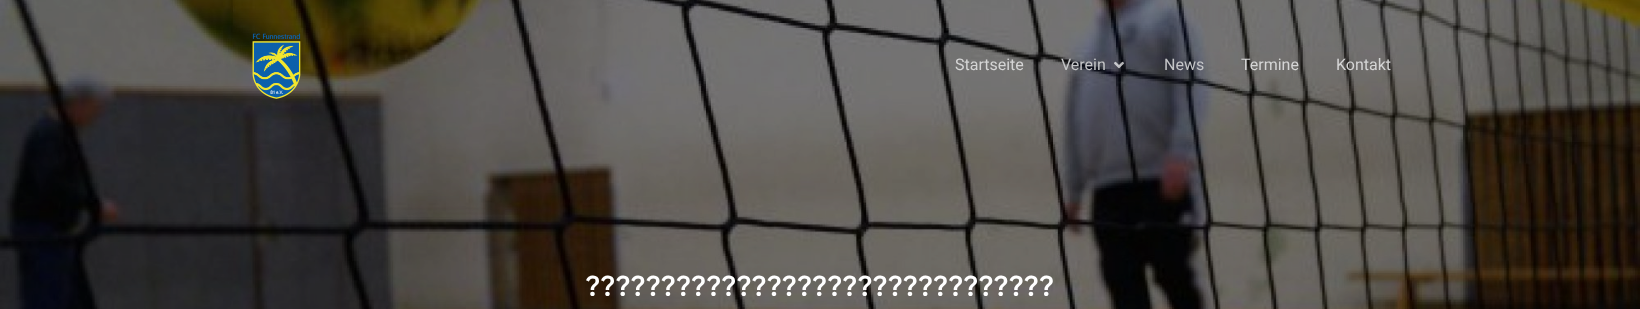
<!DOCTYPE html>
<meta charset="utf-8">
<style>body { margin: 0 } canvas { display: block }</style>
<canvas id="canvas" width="1640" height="309"></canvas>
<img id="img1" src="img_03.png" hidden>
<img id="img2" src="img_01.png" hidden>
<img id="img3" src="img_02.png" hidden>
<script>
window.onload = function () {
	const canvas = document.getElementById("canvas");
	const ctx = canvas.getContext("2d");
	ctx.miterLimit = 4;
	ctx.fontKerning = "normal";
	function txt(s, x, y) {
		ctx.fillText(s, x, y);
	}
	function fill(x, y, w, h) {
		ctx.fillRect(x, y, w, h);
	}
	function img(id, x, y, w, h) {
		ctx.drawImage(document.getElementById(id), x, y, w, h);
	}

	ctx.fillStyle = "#FFFFFF";
	fill(0, 0, 1640, 309);
	img("img1", 0, 0, 1640, 309);
	img("img2", 252, 33, 49, 66);
	img("img3", 1114, 61, 10, 8);
	ctx.font = "16px Roboto";
	ctx.fillStyle = "#D5D5D5";
	txt("Startseite", 955, 70);
	ctx.fillStyle = "#C4C5C7";
	txt("Verein", 1061, 70);
	txt("News", 1164, 70);
	ctx.fillStyle = "#D5D5D5";
	txt("Termine", 1241, 70);
	txt("Kontakt", 1336, 70);
	ctx.font = "600 28.75px Niramit";
	ctx.fillStyle = "#FFFFFF";
	txt("???????????????????????????????", 585, 296);
};
</script>
